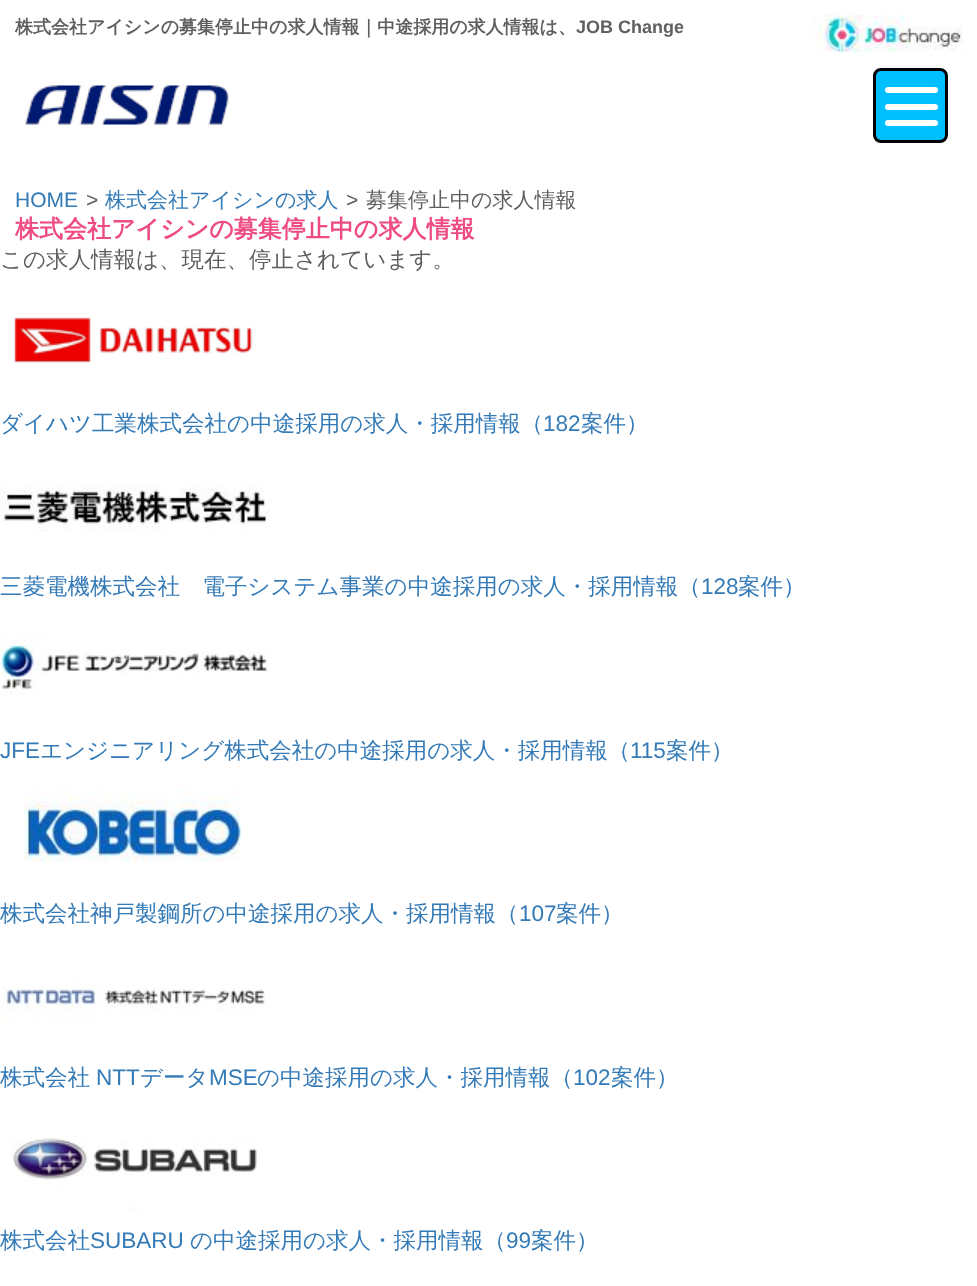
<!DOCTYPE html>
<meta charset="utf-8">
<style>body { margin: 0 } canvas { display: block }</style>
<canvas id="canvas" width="977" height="1286"></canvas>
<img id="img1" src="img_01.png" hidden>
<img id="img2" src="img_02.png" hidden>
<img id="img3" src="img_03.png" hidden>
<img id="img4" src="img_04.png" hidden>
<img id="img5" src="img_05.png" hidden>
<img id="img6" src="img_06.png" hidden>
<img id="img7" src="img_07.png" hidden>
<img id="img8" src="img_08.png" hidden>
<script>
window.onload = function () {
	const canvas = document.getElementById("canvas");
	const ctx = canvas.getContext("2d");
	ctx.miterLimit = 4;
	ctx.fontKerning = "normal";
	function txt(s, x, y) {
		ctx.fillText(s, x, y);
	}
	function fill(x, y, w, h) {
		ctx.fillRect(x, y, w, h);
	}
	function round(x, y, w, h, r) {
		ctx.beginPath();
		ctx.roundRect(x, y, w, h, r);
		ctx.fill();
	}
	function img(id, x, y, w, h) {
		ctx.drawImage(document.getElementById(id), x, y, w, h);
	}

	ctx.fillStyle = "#FFFFFF";
	fill(0, 0, 977, 1286);
	img("img1", 813, 15, 150, 38);
	img("img2", 25, 85, 204, 40);
	ctx.fillStyle = "#00BFFE";
	ctx.beginPath();
	ctx.roundRect(874.5, 69.5, 72, 72, 6.5);
	ctx.fill();
	ctx.strokeStyle = "#000000";
	ctx.lineWidth = 3;
	ctx.stroke();
	ctx.fillStyle = "#FFFFFF";
	round(885, 120, 53, 6, 3);
	round(885, 104, 53, 6, 3);
	round(885, 87, 53, 6, 3);
	img("img3", 13, 317, 240, 47);
	img("img4", 0, 486, 270, 46);
	img("img5", 0, 635, 270, 61);
	img("img6", 23, 789, 219, 73);
	img("img7", 2, 979, 263, 45);
	img("img8", 12, 1138, 245, 74);
	ctx.font = "bold 18px WenQuanYi Zen Hei";
	ctx.fillStyle = "#5F5F5F";
	txt("株式会社アイシンの募集停止中の求人情報｜中途採用の求人情報は、", 15, 33);
	ctx.font = "bold 18px Liberation Sans";
	txt("JOB Change", 576, 33);
	ctx.font = "21px Liberation Sans";
	ctx.fillStyle = "#337AB7";
	txt("HOME", 15, 207);
	ctx.fillStyle = "#5F5F5F";
	txt(">", 86, 207);
	ctx.font = "500 21px WenQuanYi Zen Hei";
	ctx.fillStyle = "#337AB7";
	txt("株式会社アイシンの求人", 105, 207);
	ctx.font = "21px Liberation Sans";
	ctx.fillStyle = "#5F5F5F";
	txt(">", 346, 207);
	ctx.font = "500 21px WenQuanYi Zen Hei";
	txt("募集停止中の求人情報", 366, 207);
	ctx.font = "bold 24px WenQuanYi Zen Hei";
	ctx.fillStyle = "#EE4A84";
	txt("株式会社アイシンの募集停止中の求人情報", 15, 237);
	ctx.font = "500 22.5px WenQuanYi Zen Hei";
	ctx.fillStyle = "#5F5F5F";
	txt("この求人情報は、現在、停止されています。", 0, 267);
	ctx.fillStyle = "#337AB7";
	txt("ダイハツ工業株式会社の中途採用の求人・採用情報（", 0, 431);
	ctx.font = "22.5px Liberation Sans";
	txt("182", 543, 431);
	ctx.font = "500 22.5px WenQuanYi Zen Hei";
	txt("案件）", 581, 431);
	txt("三菱電機株式会社　電子システム事業の中途採用の求人・採用情報（", 0, 594);
	ctx.font = "22.5px Liberation Sans";
	txt("128", 701, 594);
	ctx.font = "500 22.5px WenQuanYi Zen Hei";
	txt("案件）", 738, 594);
	ctx.font = "22.5px Liberation Sans";
	txt("JFE", 0, 758);
	ctx.font = "500 22.5px WenQuanYi Zen Hei";
	txt("エンジニアリング株式会社の中途採用の求人・採用情報（", 40, 758);
	ctx.font = "22.5px Liberation Sans";
	txt("115", 630, 758);
	ctx.font = "500 22.5px WenQuanYi Zen Hei";
	txt("案件）", 666, 758);
	txt("株式会社神戸製鋼所の中途採用の求人・採用情報（", 0, 921);
	ctx.font = "22.5px Liberation Sans";
	txt("107", 519, 921);
	ctx.font = "500 22.5px WenQuanYi Zen Hei";
	txt("案件）", 556, 921);
	txt("株式会社", 0, 1085);
	ctx.font = "22.5px Liberation Sans";
	txt("NTT", 96, 1085);
	ctx.font = "500 22.5px WenQuanYi Zen Hei";
	txt("データ", 140, 1085);
	ctx.font = "22.5px Liberation Sans";
	txt("MSE", 209, 1085);
	ctx.font = "500 22.5px WenQuanYi Zen Hei";
	txt("の中途採用の求人・採用情報（", 257, 1085);
	ctx.font = "22.5px Liberation Sans";
	txt("102", 573, 1085);
	ctx.font = "500 22.5px WenQuanYi Zen Hei";
	txt("案件）", 611, 1085);
	txt("株式会社", 0, 1248);
	ctx.font = "22.5px Liberation Sans";
	txt("SUBARU", 90, 1248);
	ctx.font = "500 22.5px WenQuanYi Zen Hei";
	txt("の中途採用の求人・採用情報（", 190, 1248);
	ctx.font = "22.5px Liberation Sans";
	txt("99", 506, 1248);
	ctx.font = "500 22.5px WenQuanYi Zen Hei";
	txt("案件）", 531, 1248);
};
</script>
